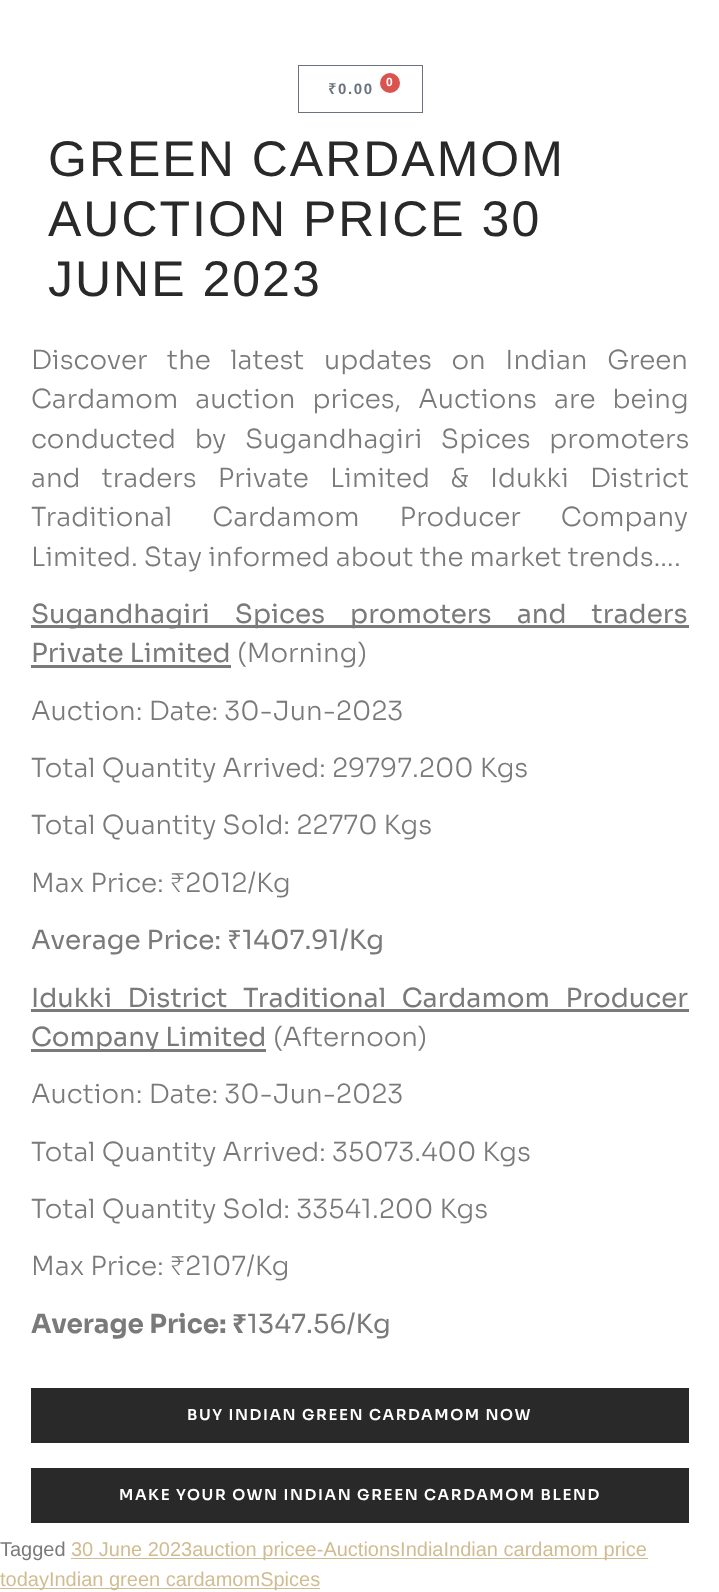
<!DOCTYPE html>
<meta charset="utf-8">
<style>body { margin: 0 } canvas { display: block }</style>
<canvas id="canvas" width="719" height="1592"></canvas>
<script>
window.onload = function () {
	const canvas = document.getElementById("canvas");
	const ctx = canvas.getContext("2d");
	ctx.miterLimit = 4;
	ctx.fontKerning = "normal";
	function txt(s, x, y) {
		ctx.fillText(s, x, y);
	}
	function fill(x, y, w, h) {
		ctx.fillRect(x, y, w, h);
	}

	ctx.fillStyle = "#FFFFFF";
	fill(0, 0, 719, 1592);
	ctx.strokeStyle = "#69727D";
	ctx.strokeRect(298.5, 65.5, 124, 47);
	ctx.fillStyle = "#D9534F";
	ctx.beginPath();
	ctx.arc(390, 83, 10, 0, Math.PI * 2);
	ctx.fill();
	ctx.fillStyle = "#7A7A7A";
	fill(31, 625, 658, 3);
	fill(31, 665, 200, 3);
	fill(31, 1009, 658, 3);
	fill(31, 1049, 235, 3);
	ctx.fillStyle = "#292929";
	fill(31, 1388, 658, 55);
	fill(31, 1468, 658, 55);
	ctx.fillStyle = "#D1BC92";
	fill(71, 1558, 577, 1);
	fill(0, 1588, 320, 1);
	ctx.letterSpacing = "1.6px";
	ctx.font = "bold 12px Liberation Sans";
	ctx.fillStyle = "#FFFFFF";
	txt("0", 386, 86);
	ctx.font = "600 15px Noto Sans";
	ctx.fillStyle = "#69727D";
	txt("₹", 328, 94);
	ctx.font = "bold 15px Liberation Sans";
	txt("0.00", 338, 94);
	ctx.letterSpacing = "2px";
	ctx.font = "50px Liberation Sans";
	ctx.fillStyle = "#292929";
	txt("GREEN CARDAMOM", 48, 176);
	txt("AUCTION PRICE 30", 48, 236);
	txt("JUNE 2023", 48, 296);
	ctx.letterSpacing = "0px";
	ctx.wordSpacing = "13.5px";
	ctx.font = "300 26.25px Sora";
	ctx.fillStyle = "#7A7A7A";
	txt("Discover the latest updates on Indian Green", 31, 369);
	ctx.wordSpacing = "11px";
	txt("Cardamom auction prices, Auctions are being", 31, 408);
	ctx.wordSpacing = "12.5px";
	txt("conducted by Sugandhagiri Spices promoters", 31, 448);
	ctx.wordSpacing = "15px";
	txt("and traders Private Limited & Idukki District", 31, 487);
	ctx.wordSpacing = "34px";
	txt("Traditional Cardamom Producer Company", 31, 526);
	ctx.wordSpacing = "0px";
	txt("Limited. Stay informed about the market trends….", 31, 566);
	ctx.wordSpacing = "19px";
	ctx.font = "26.25px Sora";
	txt("Sugandhagiri Spices promoters and traders", 31, 623);
	ctx.wordSpacing = "0px";
	txt("Private Limited", 31, 662);
	ctx.font = "300 26.25px Sora";
	txt("(Morning)", 237, 662);
	txt("Auction: Date: 30-Jun-2023", 31, 720);
	txt("Total Quantity Arrived: 29797.200 Kgs", 31, 777);
	txt("Total Quantity Sold: 22770 Kgs", 31, 834);
	txt("Max Price:", 31, 892);
	ctx.font = "300 26.25px Noto Sans";
	txt("₹", 170, 892);
	ctx.font = "300 26.25px Sora";
	txt("2012/Kg", 185, 892);
	ctx.font = "26.25px Sora";
	txt("Average Price:", 31, 949);
	ctx.font = "26.25px Noto Sans";
	txt("₹", 227, 949);
	ctx.font = "26.25px Sora";
	txt("1407.91/Kg", 242, 949);
	ctx.wordSpacing = "9.5px";
	txt("Idukki District Traditional Cardamom Producer", 31, 1007);
	ctx.wordSpacing = "0px";
	txt("Company Limited", 31, 1046);
	ctx.font = "300 26.25px Sora";
	txt("(Afternoon)", 273, 1046);
	txt("Auction: Date: 30-Jun-2023", 31, 1103);
	txt("Total Quantity Arrived: 35073.400 Kgs", 31, 1161);
	txt("Total Quantity Sold: 33541.200 Kgs", 31, 1218);
	txt("Max Price:", 31, 1275);
	ctx.font = "300 26.25px Noto Sans";
	txt("₹", 170, 1275);
	ctx.font = "300 26.25px Sora";
	txt("2107/Kg", 185, 1275);
	ctx.font = "bold 26.25px Sora";
	txt("Average Price:", 31, 1333);
	ctx.font = "bold 26.25px Noto Sans";
	txt("₹", 232, 1333);
	ctx.font = "26.25px Sora";
	txt("1347.56/Kg", 247, 1333);
	ctx.letterSpacing = "1.6px";
	ctx.font = "600 15px Sora";
	ctx.fillStyle = "#FFFFFF";
	txt("BUY INDIAN GREEN CARDAMOM NOW", 187, 1420);
	txt("MAKE YOUR OWN INDIAN GREEN CARDAMOM BLEND", 119, 1500);
	ctx.letterSpacing = "0px";
	ctx.font = "20px Liberation Sans";
	ctx.fillStyle = "#7A7A7A";
	txt("Tagged", 0, 1556);
	ctx.fillStyle = "#D1BC92";
	txt("30 June 2023auction pricee-AuctionsIndiaIndian cardamom price", 71, 1556);
	txt("todayIndian green cardamomSpices", 0, 1586);
};
</script>
